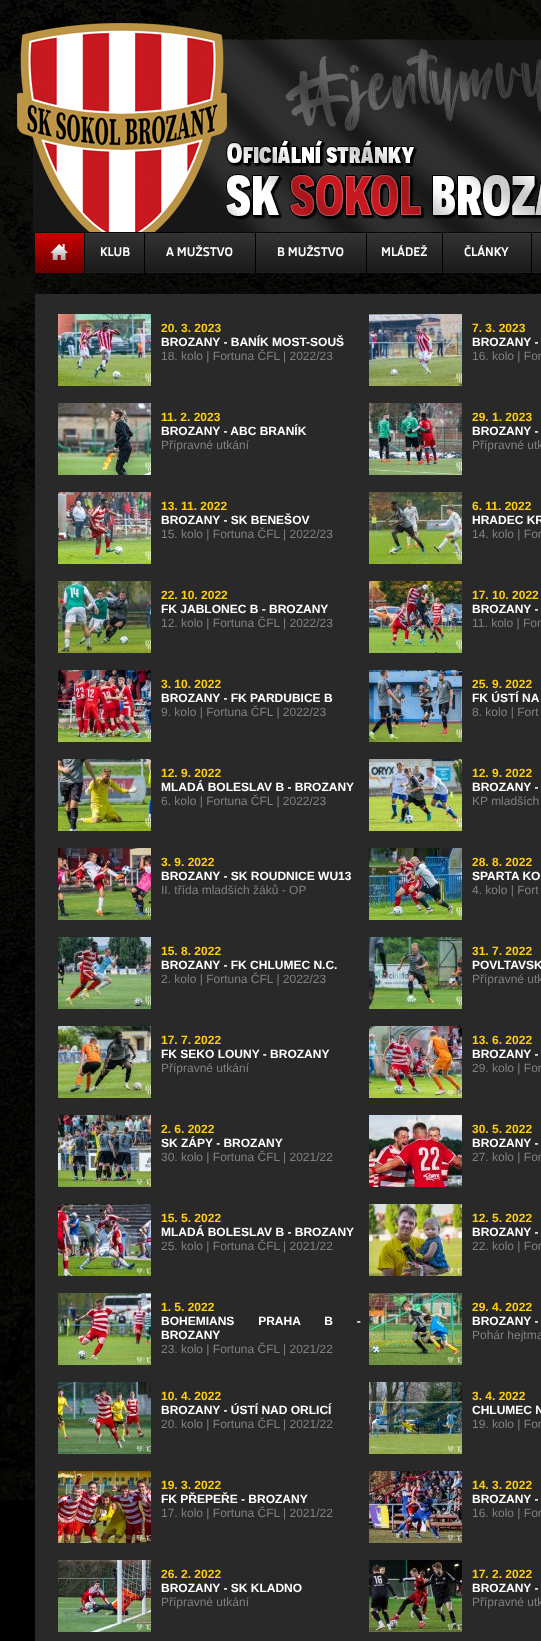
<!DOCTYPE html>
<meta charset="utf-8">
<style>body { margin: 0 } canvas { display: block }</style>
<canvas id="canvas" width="541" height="1641"></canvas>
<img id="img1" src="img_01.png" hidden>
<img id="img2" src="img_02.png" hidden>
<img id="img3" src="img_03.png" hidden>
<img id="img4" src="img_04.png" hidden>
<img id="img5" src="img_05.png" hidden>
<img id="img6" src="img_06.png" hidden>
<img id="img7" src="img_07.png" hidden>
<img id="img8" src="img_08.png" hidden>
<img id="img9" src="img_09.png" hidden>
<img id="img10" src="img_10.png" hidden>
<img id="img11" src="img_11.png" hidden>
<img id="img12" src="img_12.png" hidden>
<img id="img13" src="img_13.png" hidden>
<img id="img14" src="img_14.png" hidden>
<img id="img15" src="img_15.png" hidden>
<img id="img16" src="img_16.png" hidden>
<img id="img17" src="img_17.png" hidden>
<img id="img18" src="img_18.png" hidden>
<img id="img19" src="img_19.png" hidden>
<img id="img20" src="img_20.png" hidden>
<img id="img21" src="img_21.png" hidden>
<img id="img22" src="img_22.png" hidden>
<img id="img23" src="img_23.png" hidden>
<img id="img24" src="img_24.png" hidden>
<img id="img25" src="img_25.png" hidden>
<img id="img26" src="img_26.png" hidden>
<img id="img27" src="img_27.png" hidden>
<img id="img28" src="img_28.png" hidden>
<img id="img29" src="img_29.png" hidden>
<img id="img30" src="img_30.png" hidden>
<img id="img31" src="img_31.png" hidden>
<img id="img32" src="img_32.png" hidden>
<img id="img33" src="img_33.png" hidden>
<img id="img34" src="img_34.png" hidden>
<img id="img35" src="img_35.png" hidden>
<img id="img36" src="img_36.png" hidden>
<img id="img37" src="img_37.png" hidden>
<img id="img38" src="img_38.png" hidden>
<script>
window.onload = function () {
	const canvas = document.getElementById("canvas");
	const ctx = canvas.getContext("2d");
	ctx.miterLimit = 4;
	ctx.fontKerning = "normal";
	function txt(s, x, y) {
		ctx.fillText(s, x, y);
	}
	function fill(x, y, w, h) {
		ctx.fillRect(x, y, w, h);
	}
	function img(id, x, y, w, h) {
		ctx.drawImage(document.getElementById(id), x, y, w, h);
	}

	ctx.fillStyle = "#000000";
	fill(0, 0, 541, 1641);
	img("img1", 0, 0, 541, 1500);
	img("img2", 17, 23, 524, 209);
	ctx.fillStyle = "rgba(0, 0, 0, 0.7)";
	fill(84, 233, 448, 40);
	img("img3", 35, 233, 49, 40);
	img("img4", 85, 233, 59, 40);
	img("img5", 145, 233, 110, 40);
	img("img5", 256, 233, 110, 40);
	img("img6", 367, 233, 75, 40);
	img("img7", 443, 233, 88, 40);
	img("img8", 532, 233, 9, 40);
	ctx.fillStyle = "#292929";
	fill(35, 294, 506, 1347);
	img("img9", 58, 314, 93, 72);
	img("img10", 369, 314, 93, 72);
	img("img11", 58, 403, 93, 72);
	img("img12", 369, 403, 93, 72);
	img("img13", 58, 492, 93, 72);
	img("img14", 369, 492, 93, 72);
	img("img15", 58, 581, 93, 72);
	img("img16", 369, 581, 93, 72);
	img("img17", 58, 670, 93, 72);
	img("img18", 369, 670, 93, 72);
	img("img19", 58, 759, 93, 72);
	img("img20", 369, 759, 93, 72);
	img("img21", 58, 848, 93, 72);
	img("img22", 369, 848, 93, 72);
	img("img23", 58, 937, 93, 72);
	img("img24", 369, 937, 93, 72);
	img("img25", 58, 1026, 93, 72);
	img("img26", 369, 1026, 93, 72);
	img("img27", 58, 1115, 93, 72);
	img("img28", 369, 1115, 93, 72);
	img("img29", 58, 1204, 93, 72);
	img("img30", 369, 1204, 93, 72);
	img("img31", 58, 1293, 93, 72);
	img("img32", 369, 1293, 93, 72);
	img("img33", 58, 1382, 93, 72);
	img("img34", 369, 1382, 93, 72);
	img("img35", 58, 1471, 93, 72);
	img("img36", 369, 1471, 93, 72);
	img("img37", 58, 1560, 93, 72);
	img("img38", 369, 1560, 93, 72);
	ctx.font = "bold 12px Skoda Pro";
	ctx.fillStyle = "#FFFFFF";
	txt("KLUB", 100, 256);
	txt("A MUŽSTVO", 166, 256);
	txt("B MUŽSTVO", 277, 256);
	txt("MLÁDEŽ", 381, 256);
	txt("ČLÁNKY", 464, 256);
	ctx.font = "bold 12px Liberation Sans";
	ctx.fillStyle = "#FDCD16";
	txt("20. 3. 2023", 161, 332);
	ctx.fillStyle = "#FFFFFF";
	txt("BROZANY - BANÍK MOST-SOUŠ", 161, 346);
	ctx.font = "12px Liberation Sans";
	ctx.fillStyle = "#808080";
	txt("18. kolo | Fortuna ČFL | 2022/23", 161, 360);
	ctx.font = "bold 12px Liberation Sans";
	ctx.fillStyle = "#FDCD16";
	txt("7. 3. 2023", 472, 332);
	ctx.fillStyle = "#FFFFFF";
	txt("BROZANY -", 472, 346);
	ctx.font = "12px Liberation Sans";
	ctx.fillStyle = "#808080";
	txt("16. kolo | For", 472, 360);
	ctx.font = "bold 12px Liberation Sans";
	ctx.fillStyle = "#FDCD16";
	txt("11. 2. 2023", 161, 421);
	ctx.fillStyle = "#FFFFFF";
	txt("BROZANY - ABC BRANÍK", 161, 435);
	ctx.font = "12px Liberation Sans";
	ctx.fillStyle = "#808080";
	txt("Přípravné utkání", 161, 449);
	ctx.font = "bold 12px Liberation Sans";
	ctx.fillStyle = "#FDCD16";
	txt("29. 1. 2023", 472, 421);
	ctx.fillStyle = "#FFFFFF";
	txt("BROZANY -", 472, 435);
	ctx.font = "12px Liberation Sans";
	ctx.fillStyle = "#808080";
	txt("Přípravné utk", 472, 449);
	ctx.font = "bold 12px Liberation Sans";
	ctx.fillStyle = "#FDCD16";
	txt("13. 11. 2022", 161, 510);
	ctx.fillStyle = "#FFFFFF";
	txt("BROZANY - SK BENEŠOV", 161, 524);
	ctx.font = "12px Liberation Sans";
	ctx.fillStyle = "#808080";
	txt("15. kolo | Fortuna ČFL | 2022/23", 161, 538);
	ctx.font = "bold 12px Liberation Sans";
	ctx.fillStyle = "#FDCD16";
	txt("6. 11. 2022", 472, 510);
	ctx.fillStyle = "#FFFFFF";
	txt("HRADEC KR", 472, 524);
	ctx.font = "12px Liberation Sans";
	ctx.fillStyle = "#808080";
	txt("14. kolo | For", 472, 538);
	ctx.font = "bold 12px Liberation Sans";
	ctx.fillStyle = "#FDCD16";
	txt("22. 10. 2022", 161, 599);
	ctx.fillStyle = "#FFFFFF";
	txt("FK JABLONEC B - BROZANY", 161, 613);
	ctx.font = "12px Liberation Sans";
	ctx.fillStyle = "#808080";
	txt("12. kolo | Fortuna ČFL | 2022/23", 161, 627);
	ctx.font = "bold 12px Liberation Sans";
	ctx.fillStyle = "#FDCD16";
	txt("17. 10. 2022", 472, 599);
	ctx.fillStyle = "#FFFFFF";
	txt("BROZANY -", 472, 613);
	ctx.font = "12px Liberation Sans";
	ctx.fillStyle = "#808080";
	txt("11. kolo | For", 472, 627);
	ctx.font = "bold 12px Liberation Sans";
	ctx.fillStyle = "#FDCD16";
	txt("3. 10. 2022", 161, 688);
	ctx.fillStyle = "#FFFFFF";
	txt("BROZANY - FK PARDUBICE B", 161, 702);
	ctx.font = "12px Liberation Sans";
	ctx.fillStyle = "#808080";
	txt("9. kolo | Fortuna ČFL | 2022/23", 161, 716);
	ctx.font = "bold 12px Liberation Sans";
	ctx.fillStyle = "#FDCD16";
	txt("25. 9. 2022", 472, 688);
	ctx.fillStyle = "#FFFFFF";
	txt("FK ÚSTÍ NA", 472, 702);
	ctx.font = "12px Liberation Sans";
	ctx.fillStyle = "#808080";
	txt("8. kolo | Fort", 472, 716);
	ctx.font = "bold 12px Liberation Sans";
	ctx.fillStyle = "#FDCD16";
	txt("12. 9. 2022", 161, 777);
	ctx.fillStyle = "#FFFFFF";
	txt("MLADÁ BOLESLAV B - BROZANY", 161, 791);
	ctx.font = "12px Liberation Sans";
	ctx.fillStyle = "#808080";
	txt("6. kolo | Fortuna ČFL | 2022/23", 161, 805);
	ctx.font = "bold 12px Liberation Sans";
	ctx.fillStyle = "#FDCD16";
	txt("12. 9. 2022", 472, 777);
	ctx.fillStyle = "#FFFFFF";
	txt("BROZANY -", 472, 791);
	ctx.font = "12px Liberation Sans";
	ctx.fillStyle = "#808080";
	txt("KP mladších", 472, 805);
	ctx.font = "bold 12px Liberation Sans";
	ctx.fillStyle = "#FDCD16";
	txt("3. 9. 2022", 161, 866);
	ctx.fillStyle = "#FFFFFF";
	txt("BROZANY - SK ROUDNICE WU13", 161, 880);
	ctx.font = "12px Liberation Sans";
	ctx.fillStyle = "#808080";
	txt("II. třída mladších žáků - OP", 161, 894);
	ctx.font = "bold 12px Liberation Sans";
	ctx.fillStyle = "#FDCD16";
	txt("28. 8. 2022", 472, 866);
	ctx.fillStyle = "#FFFFFF";
	txt("SPARTA KO", 472, 880);
	ctx.font = "12px Liberation Sans";
	ctx.fillStyle = "#808080";
	txt("4. kolo | Fort", 472, 894);
	ctx.font = "bold 12px Liberation Sans";
	ctx.fillStyle = "#FDCD16";
	txt("15. 8. 2022", 161, 955);
	ctx.fillStyle = "#FFFFFF";
	txt("BROZANY - FK CHLUMEC N.C.", 161, 969);
	ctx.font = "12px Liberation Sans";
	ctx.fillStyle = "#808080";
	txt("2. kolo | Fortuna ČFL | 2022/23", 161, 983);
	ctx.font = "bold 12px Liberation Sans";
	ctx.fillStyle = "#FDCD16";
	txt("31. 7. 2022", 472, 955);
	ctx.fillStyle = "#FFFFFF";
	txt("POVLTAVSK", 472, 969);
	ctx.font = "12px Liberation Sans";
	ctx.fillStyle = "#808080";
	txt("Přípravné utk", 472, 983);
	ctx.font = "bold 12px Liberation Sans";
	ctx.fillStyle = "#FDCD16";
	txt("17. 7. 2022", 161, 1044);
	ctx.fillStyle = "#FFFFFF";
	txt("FK SEKO LOUNY - BROZANY", 161, 1058);
	ctx.font = "12px Liberation Sans";
	ctx.fillStyle = "#808080";
	txt("Přípravné utkání", 161, 1072);
	ctx.font = "bold 12px Liberation Sans";
	ctx.fillStyle = "#FDCD16";
	txt("13. 6. 2022", 472, 1044);
	ctx.fillStyle = "#FFFFFF";
	txt("BROZANY -", 472, 1058);
	ctx.font = "12px Liberation Sans";
	ctx.fillStyle = "#808080";
	txt("29. kolo | For", 472, 1072);
	ctx.font = "bold 12px Liberation Sans";
	ctx.fillStyle = "#FDCD16";
	txt("2. 6. 2022", 161, 1133);
	ctx.fillStyle = "#FFFFFF";
	txt("SK ZÁPY - BROZANY", 161, 1147);
	ctx.font = "12px Liberation Sans";
	ctx.fillStyle = "#808080";
	txt("30. kolo | Fortuna ČFL | 2021/22", 161, 1161);
	ctx.font = "bold 12px Liberation Sans";
	ctx.fillStyle = "#FDCD16";
	txt("30. 5. 2022", 472, 1133);
	ctx.fillStyle = "#FFFFFF";
	txt("BROZANY -", 472, 1147);
	ctx.font = "12px Liberation Sans";
	ctx.fillStyle = "#808080";
	txt("27. kolo | For", 472, 1161);
	ctx.font = "bold 12px Liberation Sans";
	ctx.fillStyle = "#FDCD16";
	txt("15. 5. 2022", 161, 1222);
	ctx.fillStyle = "#FFFFFF";
	txt("MLADÁ BOLESLAV B - BROZANY", 161, 1236);
	ctx.font = "12px Liberation Sans";
	ctx.fillStyle = "#808080";
	txt("25. kolo | Fortuna ČFL | 2021/22", 161, 1250);
	ctx.font = "bold 12px Liberation Sans";
	ctx.fillStyle = "#FDCD16";
	txt("12. 5. 2022", 472, 1222);
	ctx.fillStyle = "#FFFFFF";
	txt("BROZANY -", 472, 1236);
	ctx.font = "12px Liberation Sans";
	ctx.fillStyle = "#808080";
	txt("22. kolo | For", 472, 1250);
	ctx.font = "bold 12px Liberation Sans";
	ctx.fillStyle = "#FDCD16";
	txt("1. 5. 2022", 161, 1311);
	ctx.wordSpacing = "20.5px";
	ctx.fillStyle = "#FFFFFF";
	txt("BOHEMIANS PRAHA B -", 161, 1325);
	ctx.wordSpacing = "0px";
	txt("BROZANY", 161, 1339);
	ctx.font = "12px Liberation Sans";
	ctx.fillStyle = "#808080";
	txt("23. kolo | Fortuna ČFL | 2021/22", 161, 1353);
	ctx.font = "bold 12px Liberation Sans";
	ctx.fillStyle = "#FDCD16";
	txt("29. 4. 2022", 472, 1311);
	ctx.fillStyle = "#FFFFFF";
	txt("BROZANY -", 472, 1325);
	ctx.font = "12px Liberation Sans";
	ctx.fillStyle = "#808080";
	txt("Pohár hejtma", 472, 1339);
	ctx.font = "bold 12px Liberation Sans";
	ctx.fillStyle = "#FDCD16";
	txt("10. 4. 2022", 161, 1400);
	ctx.fillStyle = "#FFFFFF";
	txt("BROZANY - ÚSTÍ NAD ORLICÍ", 161, 1414);
	ctx.font = "12px Liberation Sans";
	ctx.fillStyle = "#808080";
	txt("20. kolo | Fortuna ČFL | 2021/22", 161, 1428);
	ctx.font = "bold 12px Liberation Sans";
	ctx.fillStyle = "#FDCD16";
	txt("3. 4. 2022", 472, 1400);
	ctx.fillStyle = "#FFFFFF";
	txt("CHLUMEC N", 472, 1414);
	ctx.font = "12px Liberation Sans";
	ctx.fillStyle = "#808080";
	txt("19. kolo | For", 472, 1428);
	ctx.font = "bold 12px Liberation Sans";
	ctx.fillStyle = "#FDCD16";
	txt("19. 3. 2022", 161, 1489);
	ctx.fillStyle = "#FFFFFF";
	txt("FK PŘEPEŘE - BROZANY", 161, 1503);
	ctx.font = "12px Liberation Sans";
	ctx.fillStyle = "#808080";
	txt("17. kolo | Fortuna ČFL | 2021/22", 161, 1517);
	ctx.font = "bold 12px Liberation Sans";
	ctx.fillStyle = "#FDCD16";
	txt("14. 3. 2022", 472, 1489);
	ctx.fillStyle = "#FFFFFF";
	txt("BROZANY -", 472, 1503);
	ctx.font = "12px Liberation Sans";
	ctx.fillStyle = "#808080";
	txt("16. kolo | For", 472, 1517);
	ctx.font = "bold 12px Liberation Sans";
	ctx.fillStyle = "#FDCD16";
	txt("26. 2. 2022", 161, 1578);
	ctx.fillStyle = "#FFFFFF";
	txt("BROZANY - SK KLADNO", 161, 1592);
	ctx.font = "12px Liberation Sans";
	ctx.fillStyle = "#808080";
	txt("Přípravné utkání", 161, 1606);
	ctx.font = "bold 12px Liberation Sans";
	ctx.fillStyle = "#FDCD16";
	txt("17. 2. 2022", 472, 1578);
	ctx.fillStyle = "#FFFFFF";
	txt("BROZANY -", 472, 1592);
	ctx.font = "12px Liberation Sans";
	ctx.fillStyle = "#808080";
	txt("Přípravné utk", 472, 1606);
};
</script>
